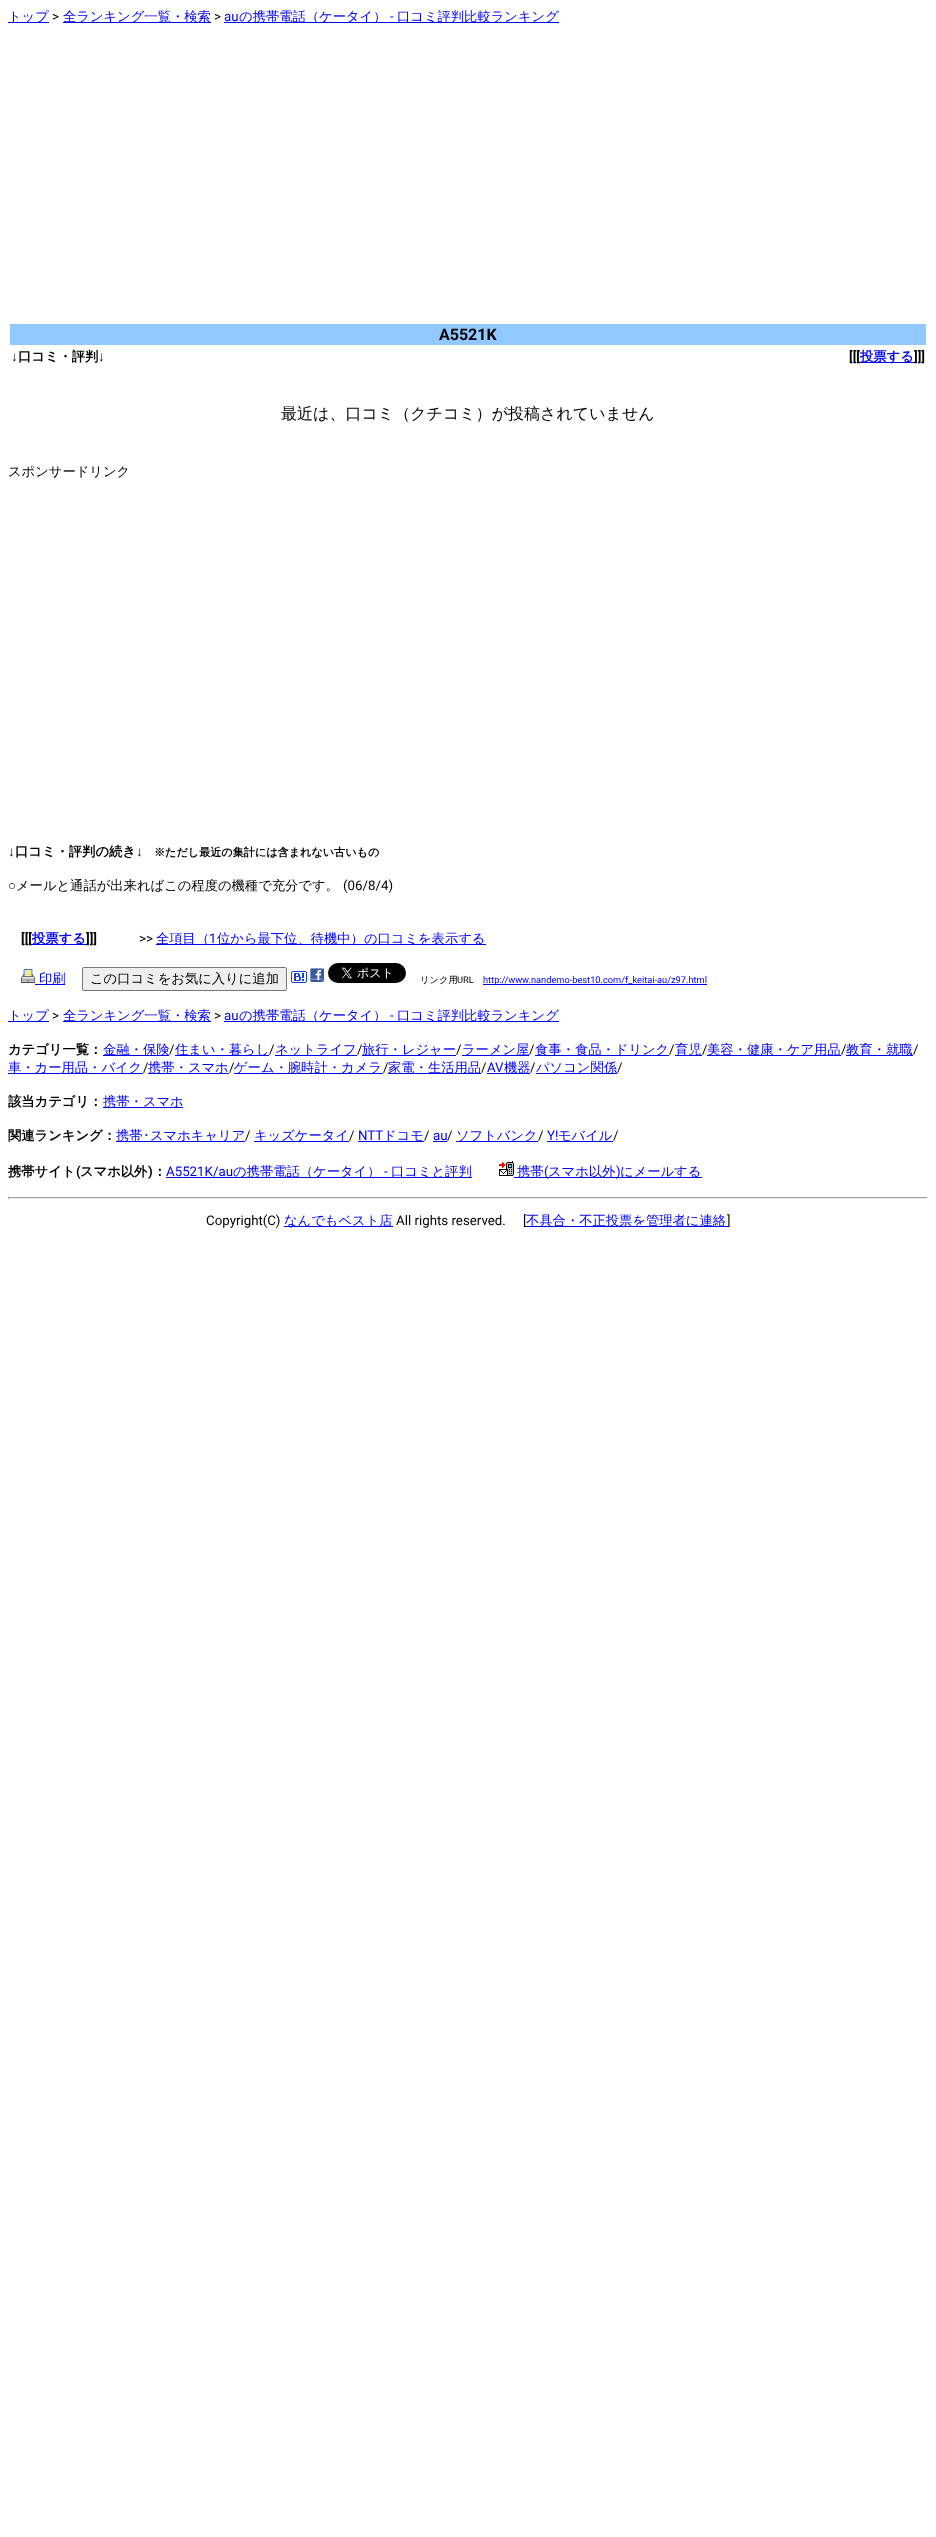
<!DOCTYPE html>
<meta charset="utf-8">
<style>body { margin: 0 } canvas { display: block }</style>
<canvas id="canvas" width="936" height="2537"></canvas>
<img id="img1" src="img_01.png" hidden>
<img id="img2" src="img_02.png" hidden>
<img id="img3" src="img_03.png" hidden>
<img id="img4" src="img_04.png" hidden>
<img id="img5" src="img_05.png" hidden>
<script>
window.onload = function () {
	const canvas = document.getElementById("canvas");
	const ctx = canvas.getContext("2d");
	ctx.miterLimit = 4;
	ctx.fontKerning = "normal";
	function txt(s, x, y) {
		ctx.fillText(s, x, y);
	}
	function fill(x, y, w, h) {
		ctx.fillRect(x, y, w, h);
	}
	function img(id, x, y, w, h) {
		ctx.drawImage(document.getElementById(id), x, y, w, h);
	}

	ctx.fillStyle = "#FFFFFF";
	fill(0, 0, 936, 2537);
	ctx.fillStyle = "#0000EE";
	fill(8, 22, 41, 1);
	fill(63, 22, 148, 1);
	fill(224, 22, 335, 1);
	ctx.fillStyle = "#91C8FF";
	fill(10, 324, 916, 21);
	ctx.fillStyle = "#0000EE";
	fill(860, 362, 54, 1);
	fill(156, 944, 330, 1);
	img("img1", 21, 969, 14, 14);
	fill(35, 984, 30, 1);
	ctx.fillStyle = "#EFEFEF";
	ctx.beginPath();
	ctx.roundRect(82.5, 967.5, 204, 23, 1.5);
	ctx.fill();
	ctx.strokeStyle = "#767676";
	ctx.stroke();
	img("img2", 291, 971, 16, 12);
	img("img3", 310, 968, 14, 14);
	img("img4", 328, 963, 78, 20);
	ctx.fillStyle = "#0000EE";
	fill(483, 984, 224, 1);
	fill(8, 1021, 41, 1);
	fill(63, 1021, 148, 1);
	fill(224, 1021, 335, 1);
	fill(103, 1055, 66, 1);
	fill(175, 1055, 94, 1);
	fill(275, 1055, 82, 1);
	fill(362, 1055, 94, 1);
	fill(462, 1055, 67, 1);
	fill(535, 1055, 134, 1);
	fill(675, 1055, 27, 1);
	fill(707, 1055, 134, 1);
	fill(846, 1055, 67, 1);
	fill(8, 1073, 135, 1);
	fill(148, 1073, 81, 1);
	fill(234, 1073, 149, 1);
	fill(388, 1073, 93, 1);
	fill(487, 1073, 43, 1);
	fill(536, 1073, 81, 1);
	fill(103, 1107, 80, 1);
	fill(116, 1141, 129, 1);
	fill(254, 1141, 95, 1);
	fill(358, 1141, 66, 1);
	fill(433, 1141, 14, 1);
	fill(456, 1141, 82, 1);
	fill(547, 1141, 66, 1);
	fill(166, 1177, 306, 1);
	img("img5", 499, 1161, 15, 15);
	fill(514, 1177, 188, 1);
	ctx.fillStyle = "#9F9F9F";
	fill(8, 1197, 920, 1);
	ctx.fillStyle = "#EEEEEE";
	fill(927, 1197, 1, 2);
	fill(8, 1198, 920, 1);
	ctx.fillStyle = "#9F9F9F";
	fill(8, 1197, 1, 2);
	ctx.fillStyle = "#0000EE";
	fill(284, 1226, 109, 1);
	ctx.font = "500 13.3px WenQuanYi Zen Hei";
	txt("トップ", 8, 21);
	ctx.font = "13.3px Roboto";
	ctx.fillStyle = "#000000";
	txt(">", 52, 21);
	ctx.font = "500 13.3px WenQuanYi Zen Hei";
	ctx.fillStyle = "#0000EE";
	txt("全ランキング一覧・検索", 63, 21);
	ctx.font = "13.3px Roboto";
	ctx.fillStyle = "#000000";
	txt(">", 214, 21);
	ctx.fillStyle = "#0000EE";
	txt("au", 224, 21);
	ctx.font = "500 13.3px WenQuanYi Zen Hei";
	txt("の携帯電話（ケータイ）", 239, 21);
	ctx.font = "13.3px Roboto";
	txt("-", 390, 21);
	ctx.font = "500 13.3px WenQuanYi Zen Hei";
	txt("口コミ評判比較ランキング", 397, 21);
	ctx.font = "bold 16px Roboto";
	ctx.fillStyle = "#000000";
	txt("A5521K", 439, 340);
	ctx.font = "bold 13.3px Liberation Sans";
	txt("↓", 11, 361);
	ctx.font = "bold 13.3px WenQuanYi Zen Hei";
	txt("口コミ・評判", 18, 361);
	ctx.font = "bold 13.3px Liberation Sans";
	txt("↓", 98, 361);
	ctx.font = "bold 13.3px Roboto";
	txt("[[[", 849, 361);
	ctx.font = "bold 13.3px WenQuanYi Zen Hei";
	ctx.fillStyle = "#0000EE";
	txt("投票する", 860, 361);
	ctx.font = "bold 13.3px Roboto";
	ctx.fillStyle = "#000000";
	txt("]]]", 914, 361);
	ctx.font = "500 16px WenQuanYi Zen Hei";
	txt("最近は、口コミ（クチコミ）が投稿されていません", 281, 419);
	ctx.font = "500 13.3px WenQuanYi Zen Hei";
	txt("スポンサードリンク", 8, 476);
	ctx.font = "bold 13.3px Liberation Sans";
	txt("↓", 8, 856);
	ctx.font = "bold 13.3px WenQuanYi Zen Hei";
	txt("口コミ・評判の続き", 15, 856);
	ctx.font = "bold 13.3px Liberation Sans";
	txt("↓", 136, 856);
	ctx.font = "bold 11.1px WenQuanYi Zen Hei";
	txt("※ただし最近の集計には含まれない古いもの", 154, 856);
	ctx.font = "13.3px Liberation Sans";
	txt("○", 8, 890);
	ctx.font = "500 13.3px WenQuanYi Zen Hei";
	txt("メールと通話が出来ればこの程度の機種で充分です。", 16, 890);
	ctx.font = "13.3px Roboto";
	txt("(06/8/4)", 343, 890);
	ctx.font = "bold 13.3px Roboto";
	txt("[[[", 21, 943);
	ctx.fillStyle = "#0000EE";
	fill(32, 944, 54, 1);
	ctx.font = "bold 13.3px WenQuanYi Zen Hei";
	txt("投票する", 32, 943);
	ctx.font = "bold 13.3px Roboto";
	ctx.fillStyle = "#000000";
	txt("]]]", 86, 943);
	ctx.font = "13.3px Roboto";
	txt(">>", 139, 943);
	ctx.font = "500 13.3px WenQuanYi Zen Hei";
	ctx.fillStyle = "#0000EE";
	txt("全項目（", 156, 943);
	ctx.font = "13.3px Roboto";
	txt("1", 209, 943);
	ctx.font = "500 13.3px WenQuanYi Zen Hei";
	txt("位から最下位、待機中）の口コミを表示する", 217, 943);
	txt("印刷", 39, 983);
	ctx.fillStyle = "#000000";
	txt("この口コミをお気に入りに追加", 90, 983);
	ctx.font = "500 9.25px WenQuanYi Zen Hei";
	txt("リンク用", 420, 983);
	ctx.font = "9.25px Roboto";
	txt("URL", 457, 983);
	ctx.fillStyle = "#0000EE";
	txt("http://www.nandemo-best10.com/f_keitai-au/z97.html", 483, 983);
	ctx.font = "500 13.3px WenQuanYi Zen Hei";
	txt("トップ", 8, 1020);
	ctx.font = "13.3px Roboto";
	ctx.fillStyle = "#000000";
	txt(">", 52, 1020);
	ctx.font = "500 13.3px WenQuanYi Zen Hei";
	ctx.fillStyle = "#0000EE";
	txt("全ランキング一覧・検索", 63, 1020);
	ctx.font = "13.3px Roboto";
	ctx.fillStyle = "#000000";
	txt(">", 214, 1020);
	ctx.fillStyle = "#0000EE";
	txt("au", 224, 1020);
	ctx.font = "500 13.3px WenQuanYi Zen Hei";
	txt("の携帯電話（ケータイ）", 239, 1020);
	ctx.font = "13.3px Roboto";
	txt("-", 390, 1020);
	ctx.font = "500 13.3px WenQuanYi Zen Hei";
	txt("口コミ評判比較ランキング", 397, 1020);
	ctx.font = "bold 13.3px WenQuanYi Zen Hei";
	ctx.fillStyle = "#000000";
	txt("カテゴリ一覧：", 8, 1054);
	ctx.font = "500 13.3px WenQuanYi Zen Hei";
	ctx.fillStyle = "#0000EE";
	txt("金融・保険", 103, 1054);
	ctx.font = "13.3px Roboto";
	ctx.fillStyle = "#000000";
	txt("/", 169, 1054);
	ctx.font = "500 13.3px WenQuanYi Zen Hei";
	ctx.fillStyle = "#0000EE";
	txt("住まい・暮らし", 175, 1054);
	ctx.font = "13.3px Roboto";
	ctx.fillStyle = "#000000";
	txt("/", 269, 1054);
	ctx.font = "500 13.3px WenQuanYi Zen Hei";
	ctx.fillStyle = "#0000EE";
	txt("ネットライフ", 275, 1054);
	ctx.font = "13.3px Roboto";
	ctx.fillStyle = "#000000";
	txt("/", 357, 1054);
	ctx.font = "500 13.3px WenQuanYi Zen Hei";
	ctx.fillStyle = "#0000EE";
	txt("旅行・レジャー", 362, 1054);
	ctx.font = "13.3px Roboto";
	ctx.fillStyle = "#000000";
	txt("/", 456, 1054);
	ctx.font = "500 13.3px WenQuanYi Zen Hei";
	ctx.fillStyle = "#0000EE";
	txt("ラーメン屋", 462, 1054);
	ctx.font = "13.3px Roboto";
	ctx.fillStyle = "#000000";
	txt("/", 529, 1054);
	ctx.font = "500 13.3px WenQuanYi Zen Hei";
	ctx.fillStyle = "#0000EE";
	txt("食事・食品・ドリンク", 535, 1054);
	ctx.font = "13.3px Roboto";
	ctx.fillStyle = "#000000";
	txt("/", 669, 1054);
	ctx.font = "500 13.3px WenQuanYi Zen Hei";
	ctx.fillStyle = "#0000EE";
	txt("育児", 675, 1054);
	ctx.font = "13.3px Roboto";
	ctx.fillStyle = "#000000";
	txt("/", 702, 1054);
	ctx.font = "500 13.3px WenQuanYi Zen Hei";
	ctx.fillStyle = "#0000EE";
	txt("美容・健康・ケア用品", 707, 1054);
	ctx.font = "13.3px Roboto";
	ctx.fillStyle = "#000000";
	txt("/", 841, 1054);
	ctx.font = "500 13.3px WenQuanYi Zen Hei";
	ctx.fillStyle = "#0000EE";
	txt("教育・就職", 846, 1054);
	ctx.font = "13.3px Roboto";
	ctx.fillStyle = "#000000";
	txt("/", 913, 1054);
	ctx.font = "500 13.3px WenQuanYi Zen Hei";
	ctx.fillStyle = "#0000EE";
	txt("車・カー用品・バイク", 8, 1072);
	ctx.font = "13.3px Roboto";
	ctx.fillStyle = "#000000";
	txt("/", 143, 1072);
	ctx.font = "500 13.3px WenQuanYi Zen Hei";
	ctx.fillStyle = "#0000EE";
	txt("携帯・スマホ", 148, 1072);
	ctx.font = "13.3px Roboto";
	ctx.fillStyle = "#000000";
	txt("/", 229, 1072);
	ctx.font = "500 13.3px WenQuanYi Zen Hei";
	ctx.fillStyle = "#0000EE";
	txt("ゲーム・腕時計・カメラ", 234, 1072);
	ctx.font = "13.3px Roboto";
	ctx.fillStyle = "#000000";
	txt("/", 383, 1072);
	ctx.font = "500 13.3px WenQuanYi Zen Hei";
	ctx.fillStyle = "#0000EE";
	txt("家電・生活用品", 388, 1072);
	ctx.font = "13.3px Roboto";
	ctx.fillStyle = "#000000";
	txt("/", 481, 1072);
	ctx.fillStyle = "#0000EE";
	txt("AV", 487, 1072);
	ctx.font = "500 13.3px WenQuanYi Zen Hei";
	txt("機器", 504, 1072);
	ctx.font = "13.3px Roboto";
	ctx.fillStyle = "#000000";
	txt("/", 530, 1072);
	ctx.font = "500 13.3px WenQuanYi Zen Hei";
	ctx.fillStyle = "#0000EE";
	txt("パソコン関係", 536, 1072);
	ctx.font = "13.3px Roboto";
	ctx.fillStyle = "#000000";
	txt("/", 617, 1072);
	ctx.font = "bold 13.3px WenQuanYi Zen Hei";
	txt("該当カテゴリ：", 8, 1106);
	ctx.font = "500 13.3px WenQuanYi Zen Hei";
	ctx.fillStyle = "#0000EE";
	txt("携帯・スマホ", 103, 1106);
	ctx.font = "bold 13.3px WenQuanYi Zen Hei";
	ctx.fillStyle = "#000000";
	txt("関連ランキング：", 8, 1140);
	ctx.font = "500 13.3px WenQuanYi Zen Hei";
	ctx.fillStyle = "#0000EE";
	txt("携帯", 116, 1140);
	ctx.font = "13.3px IPAGothic";
	txt("･", 143, 1140);
	ctx.font = "500 13.3px WenQuanYi Zen Hei";
	txt("スマホキャリア", 150, 1140);
	ctx.font = "13.3px Roboto";
	ctx.fillStyle = "#000000";
	txt("/", 245, 1140);
	ctx.font = "500 13.3px WenQuanYi Zen Hei";
	ctx.fillStyle = "#0000EE";
	txt("キッズケータイ", 254, 1140);
	ctx.font = "13.3px Roboto";
	ctx.fillStyle = "#000000";
	txt("/", 349, 1140);
	ctx.fillStyle = "#0000EE";
	txt("NTT", 358, 1140);
	ctx.font = "500 13.3px WenQuanYi Zen Hei";
	txt("ドコモ", 383, 1140);
	ctx.font = "13.3px Roboto";
	ctx.fillStyle = "#000000";
	txt("/", 424, 1140);
	ctx.fillStyle = "#0000EE";
	txt("au", 433, 1140);
	ctx.fillStyle = "#000000";
	txt("/", 447, 1140);
	ctx.font = "500 13.3px WenQuanYi Zen Hei";
	ctx.fillStyle = "#0000EE";
	txt("ソフトバンク", 456, 1140);
	ctx.font = "13.3px Roboto";
	ctx.fillStyle = "#000000";
	txt("/", 538, 1140);
	ctx.fillStyle = "#0000EE";
	txt("Y!", 547, 1140);
	ctx.font = "500 13.3px WenQuanYi Zen Hei";
	txt("モバイル", 558, 1140);
	ctx.font = "13.3px Roboto";
	ctx.fillStyle = "#000000";
	txt("/", 613, 1140);
	ctx.font = "bold 13.3px WenQuanYi Zen Hei";
	txt("携帯サイト", 8, 1176);
	ctx.font = "bold 13.3px Roboto";
	txt("(", 76, 1176);
	ctx.font = "bold 13.3px WenQuanYi Zen Hei";
	txt("スマホ以外", 80, 1176);
	ctx.font = "bold 13.3px Roboto";
	txt(")", 148, 1176);
	ctx.font = "bold 13.3px WenQuanYi Zen Hei";
	txt("：", 153, 1176);
	ctx.font = "13.3px Roboto";
	ctx.fillStyle = "#0000EE";
	txt("A5521K/au", 166, 1176);
	ctx.font = "500 13.3px WenQuanYi Zen Hei";
	txt("の携帯電話（ケータイ）", 233, 1176);
	ctx.font = "13.3px Roboto";
	txt("-", 384, 1176);
	ctx.font = "500 13.3px WenQuanYi Zen Hei";
	txt("口コミと評判", 391, 1176);
	txt("携帯", 517, 1176);
	ctx.font = "13.3px Roboto";
	txt("(", 544, 1176);
	ctx.font = "500 13.3px WenQuanYi Zen Hei";
	txt("スマホ以外", 548, 1176);
	ctx.font = "13.3px Roboto";
	txt(")", 616, 1176);
	ctx.font = "500 13.3px WenQuanYi Zen Hei";
	txt("にメールする", 620, 1176);
	ctx.font = "13.3px Roboto";
	ctx.fillStyle = "#000000";
	txt("Copyright(C)", 206, 1225);
	ctx.font = "500 13.3px WenQuanYi Zen Hei";
	ctx.fillStyle = "#0000EE";
	txt("なんでもベスト店", 284, 1225);
	ctx.font = "13.3px Roboto";
	ctx.fillStyle = "#000000";
	txt("All rights reserved.", 396, 1225);
	txt("[", 523, 1225);
	ctx.fillStyle = "#0000EE";
	fill(526, 1226, 201, 1);
	ctx.font = "500 13.3px WenQuanYi Zen Hei";
	txt("不具合・不正投票を管理者に連絡", 526, 1225);
	ctx.font = "13.3px Roboto";
	ctx.fillStyle = "#000000";
	txt("]", 727, 1225);
};
</script>
